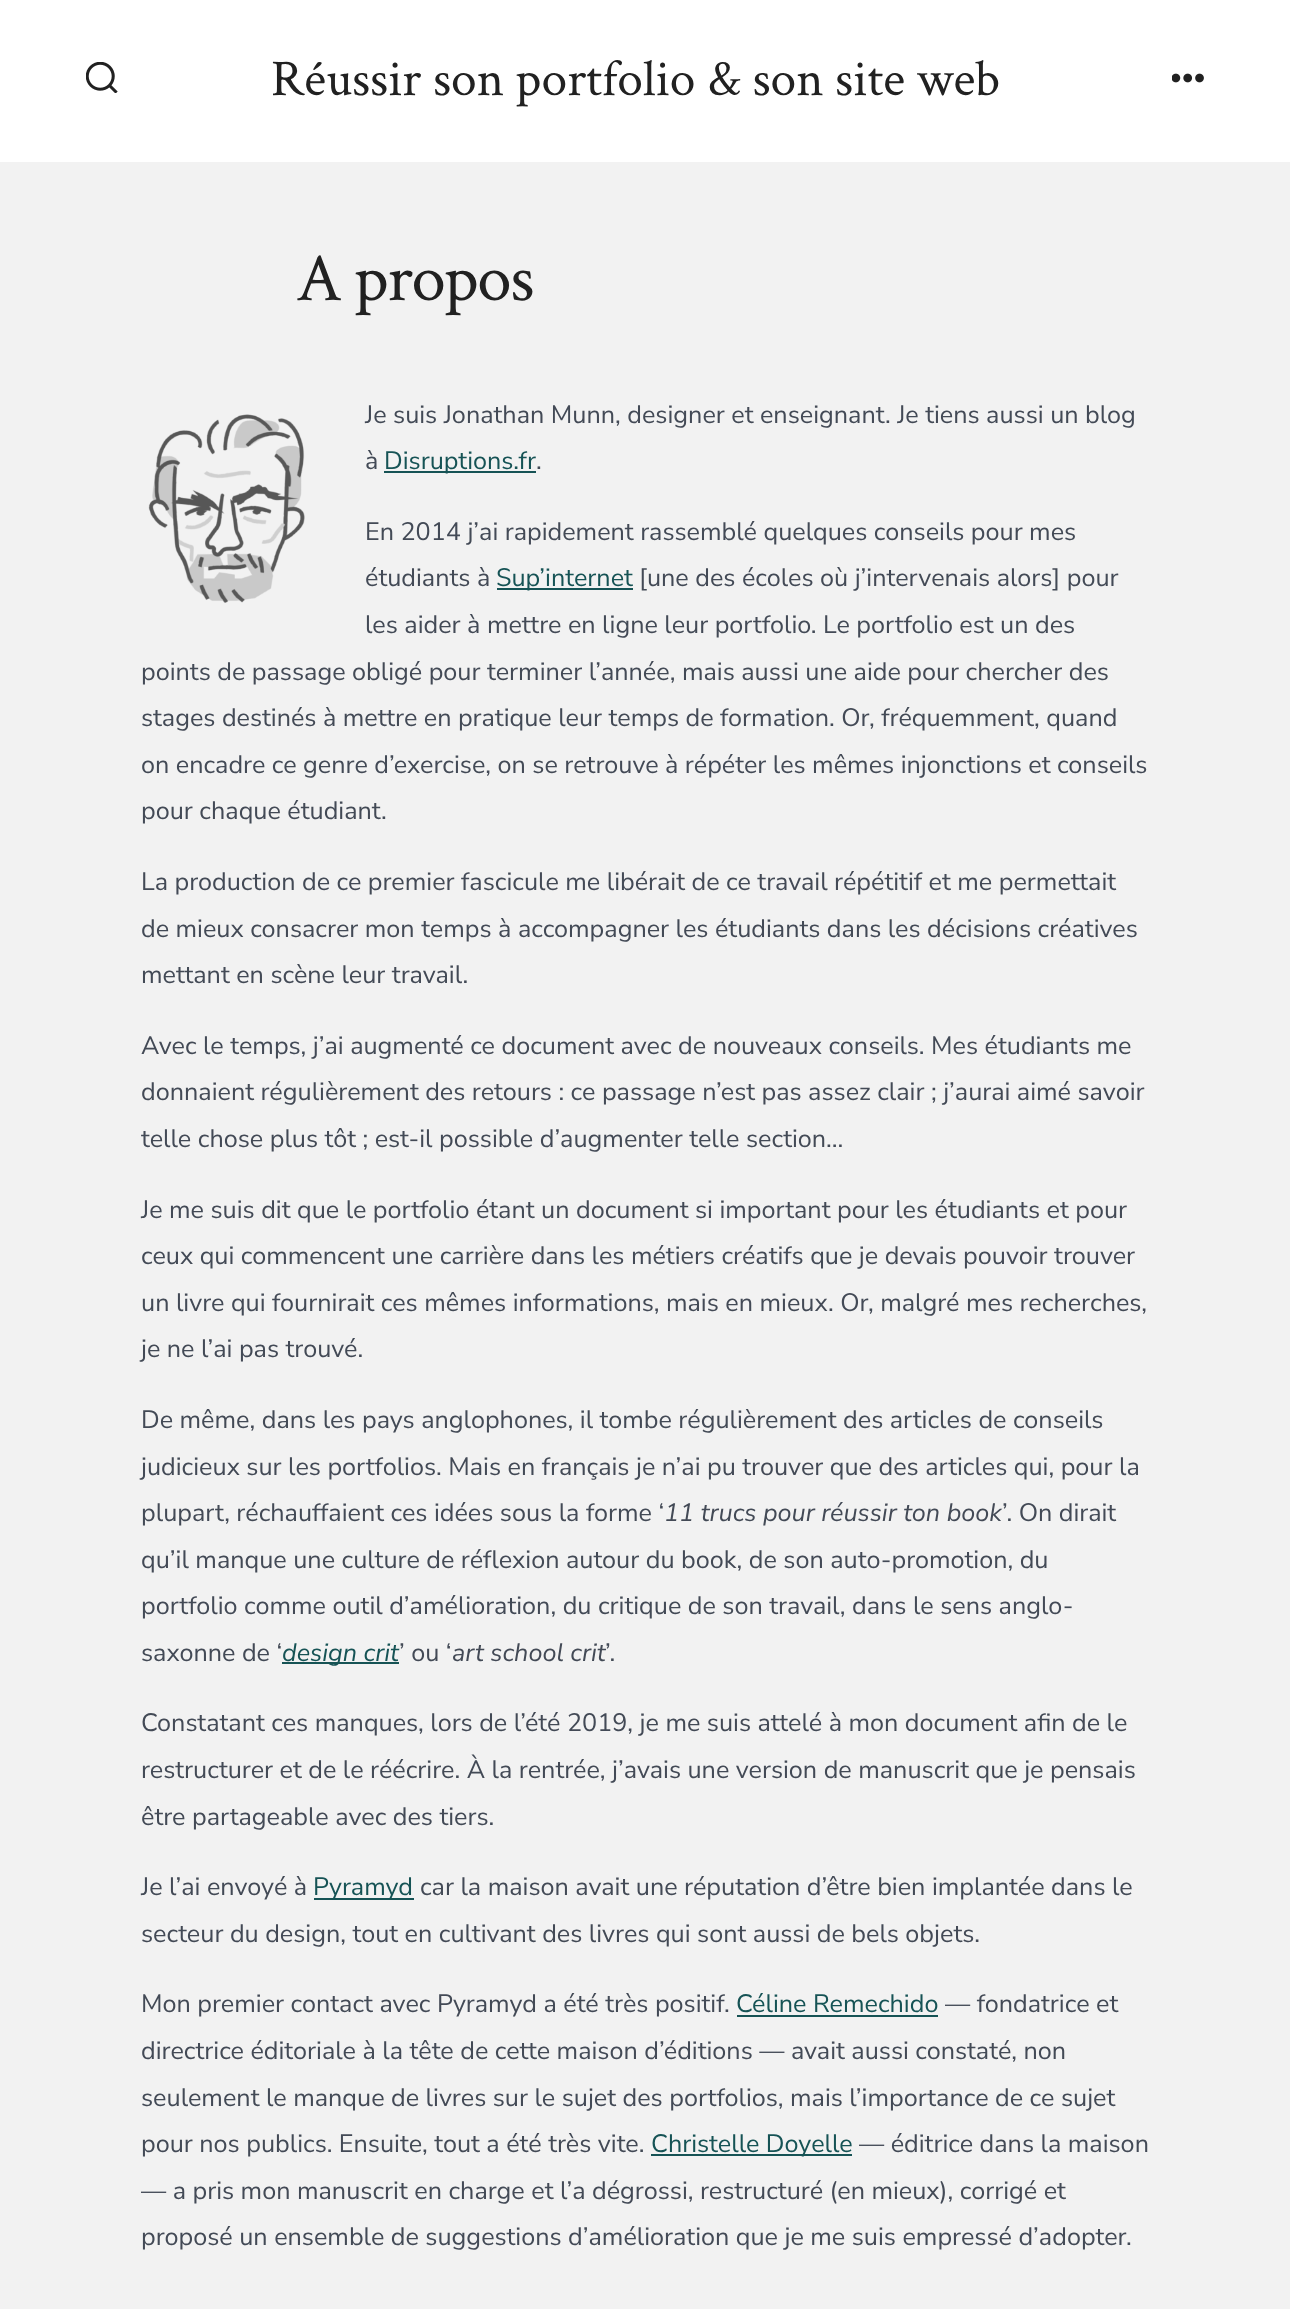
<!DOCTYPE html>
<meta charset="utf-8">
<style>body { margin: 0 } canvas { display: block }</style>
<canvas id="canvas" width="1290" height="2309"></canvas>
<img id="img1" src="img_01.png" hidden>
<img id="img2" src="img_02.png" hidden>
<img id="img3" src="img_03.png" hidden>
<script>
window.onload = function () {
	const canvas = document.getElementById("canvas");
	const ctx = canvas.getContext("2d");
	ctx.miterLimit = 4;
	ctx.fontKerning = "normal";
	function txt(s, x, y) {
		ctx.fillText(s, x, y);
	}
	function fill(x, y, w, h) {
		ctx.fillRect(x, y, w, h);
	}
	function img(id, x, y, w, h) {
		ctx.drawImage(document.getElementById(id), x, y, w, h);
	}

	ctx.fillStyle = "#F2F2F2";
	fill(0, 0, 1290, 2309);
	ctx.fillStyle = "#FFFFFF";
	fill(0, 0, 1290, 162);
	img("img1", 86, 62, 32, 31);
	img("img2", 1172, 73, 32, 10);
	img("img3", 148, 414, 157, 189);
	ctx.fillStyle = "#165355";
	fill(384, 471, 152, 2);
	fill(497, 588, 136, 2);
	fill(282, 1662, 117, 2);
	fill(314, 1898, 100, 2);
	fill(737, 2015, 201, 2);
	fill(651, 2154, 201, 2);
	ctx.font = "51.6px Crimson Text";
	ctx.fillStyle = "#212121";
	txt("Réussir son portfolio & son site web", 271, 95);
	ctx.letterSpacing = "-1.5px";
	ctx.font = "69px Crimson Text";
	txt("A propos", 296, 300);
	ctx.letterSpacing = "0px";
	ctx.font = "25.2px Nunito Sans";
	ctx.fillStyle = "#434A56";
	txt("Je suis Jonathan Munn, designer et enseignant. Je tiens aussi un blog", 365, 423);
	txt("à", 365, 469);
	ctx.fillStyle = "#165355";
	txt("Disruptions.fr", 384, 469);
	ctx.fillStyle = "#434A56";
	txt(".", 536, 469);
	txt("En 2014 j’ai rapidement rassemblé quelques conseils pour mes", 365, 540);
	txt("étudiants à", 365, 586);
	ctx.fillStyle = "#165355";
	txt("Sup’internet", 496, 586);
	ctx.fillStyle = "#434A56";
	txt("[une des écoles où j’intervenais alors] pour", 639, 586);
	txt("les aider à mettre en ligne leur portfolio. Le portfolio est un des", 365, 633);
	txt("points de passage obligé pour terminer l’année, mais aussi une aide pour chercher des", 141, 680);
	txt("stages destinés à mettre en pratique leur temps de formation. Or, fréquemment, quand", 141, 726);
	txt("on encadre ce genre d’exercise, on se retrouve à répéter les mêmes injonctions et conseils", 141, 773);
	txt("pour chaque étudiant.", 141, 819);
	txt("La production de ce premier fascicule me libérait de ce travail répétitif et me permettait", 141, 890);
	txt("de mieux consacrer mon temps à accompagner les étudiants dans les décisions créatives", 141, 937);
	txt("mettant en scène leur travail.", 141, 983);
	txt("Avec le temps, j’ai augmenté ce document avec de nouveaux conseils. Mes étudiants me", 141, 1054);
	txt("donnaient régulièrement des retours : ce passage n’est pas assez clair ; j’aurai aimé savoir", 141, 1100);
	txt("telle chose plus tôt ; est-il possible d’augmenter telle section…", 141, 1147);
	txt("Je me suis dit que le portfolio étant un document si important pour les étudiants et pour", 141, 1218);
	txt("ceux qui commencent une carrière dans les métiers créatifs que je devais pouvoir trouver", 141, 1264);
	txt("un livre qui fournirait ces mêmes informations, mais en mieux. Or, malgré mes recherches,", 141, 1311);
	txt("je ne l’ai pas trouvé.", 141, 1357);
	txt("De même, dans les pays anglophones, il tombe régulièrement des articles de conseils", 141, 1428);
	txt("judicieux sur les portfolios. Mais en français je n’ai pu trouver que des articles qui, pour la", 141, 1475);
	txt("plupart, réchauffaient ces idées sous la forme ‘", 141, 1521);
	ctx.font = "italic 200 25.2px Nunito Sans";
	txt("11 trucs pour réussir ton book", 664, 1521);
	ctx.font = "25.2px Nunito Sans";
	txt("’. On dirait", 1002, 1521);
	txt("qu’il manque une culture de réflexion autour du book, de son auto-promotion, du", 141, 1568);
	txt("portfolio comme outil d’amélioration, du critique de son travail, dans le sens anglo-", 141, 1614);
	txt("saxonne de ‘", 141, 1661);
	ctx.font = "italic 200 25.2px Nunito Sans";
	ctx.fillStyle = "#165355";
	txt("design crit", 282, 1661);
	ctx.font = "25.2px Nunito Sans";
	ctx.fillStyle = "#434A56";
	txt("’ ou ‘", 399, 1661);
	ctx.font = "italic 200 25.2px Nunito Sans";
	txt("art school crit", 452, 1661);
	ctx.font = "25.2px Nunito Sans";
	txt("’.", 605, 1661);
	txt("Constatant ces manques, lors de l’été 2019, je me suis attelé à mon document afin de le", 141, 1731);
	txt("restructurer et de le réécrire. À la rentrée, j’avais une version de manuscrit que je pensais", 141, 1778);
	txt("être partageable avec des tiers.", 141, 1825);
	txt("Je l’ai envoyé à", 141, 1895);
	ctx.fillStyle = "#165355";
	txt("Pyramyd", 313, 1895);
	ctx.fillStyle = "#434A56";
	txt("car la maison avait une réputation d’être bien implantée dans le", 420, 1895);
	txt("secteur du design, tout en cultivant des livres qui sont aussi de bels objets.", 141, 1942);
	txt("Mon premier contact avec Pyramyd a été très positif.", 141, 2012);
	ctx.fillStyle = "#165355";
	txt("Céline Remechido", 736, 2012);
	ctx.fillStyle = "#434A56";
	txt("— fondatrice et", 945, 2012);
	txt("directrice éditoriale à la tête de cette maison d’éditions — avait aussi constaté, non", 141, 2059);
	txt("seulement le manque de livres sur le sujet des portfolios, mais l’importance de ce sujet", 141, 2106);
	txt("pour nos publics. Ensuite, tout a été très vite.", 141, 2152);
	ctx.fillStyle = "#165355";
	txt("Christelle Doyelle", 651, 2152);
	ctx.fillStyle = "#434A56";
	txt("— éditrice dans la maison", 859, 2152);
	txt("— a pris mon manuscrit en charge et l’a dégrossi, restructuré (en mieux), corrigé et", 141, 2199);
	txt("proposé un ensemble de suggestions d’amélioration que je me suis empressé d’adopter.", 141, 2245);
};
</script>
